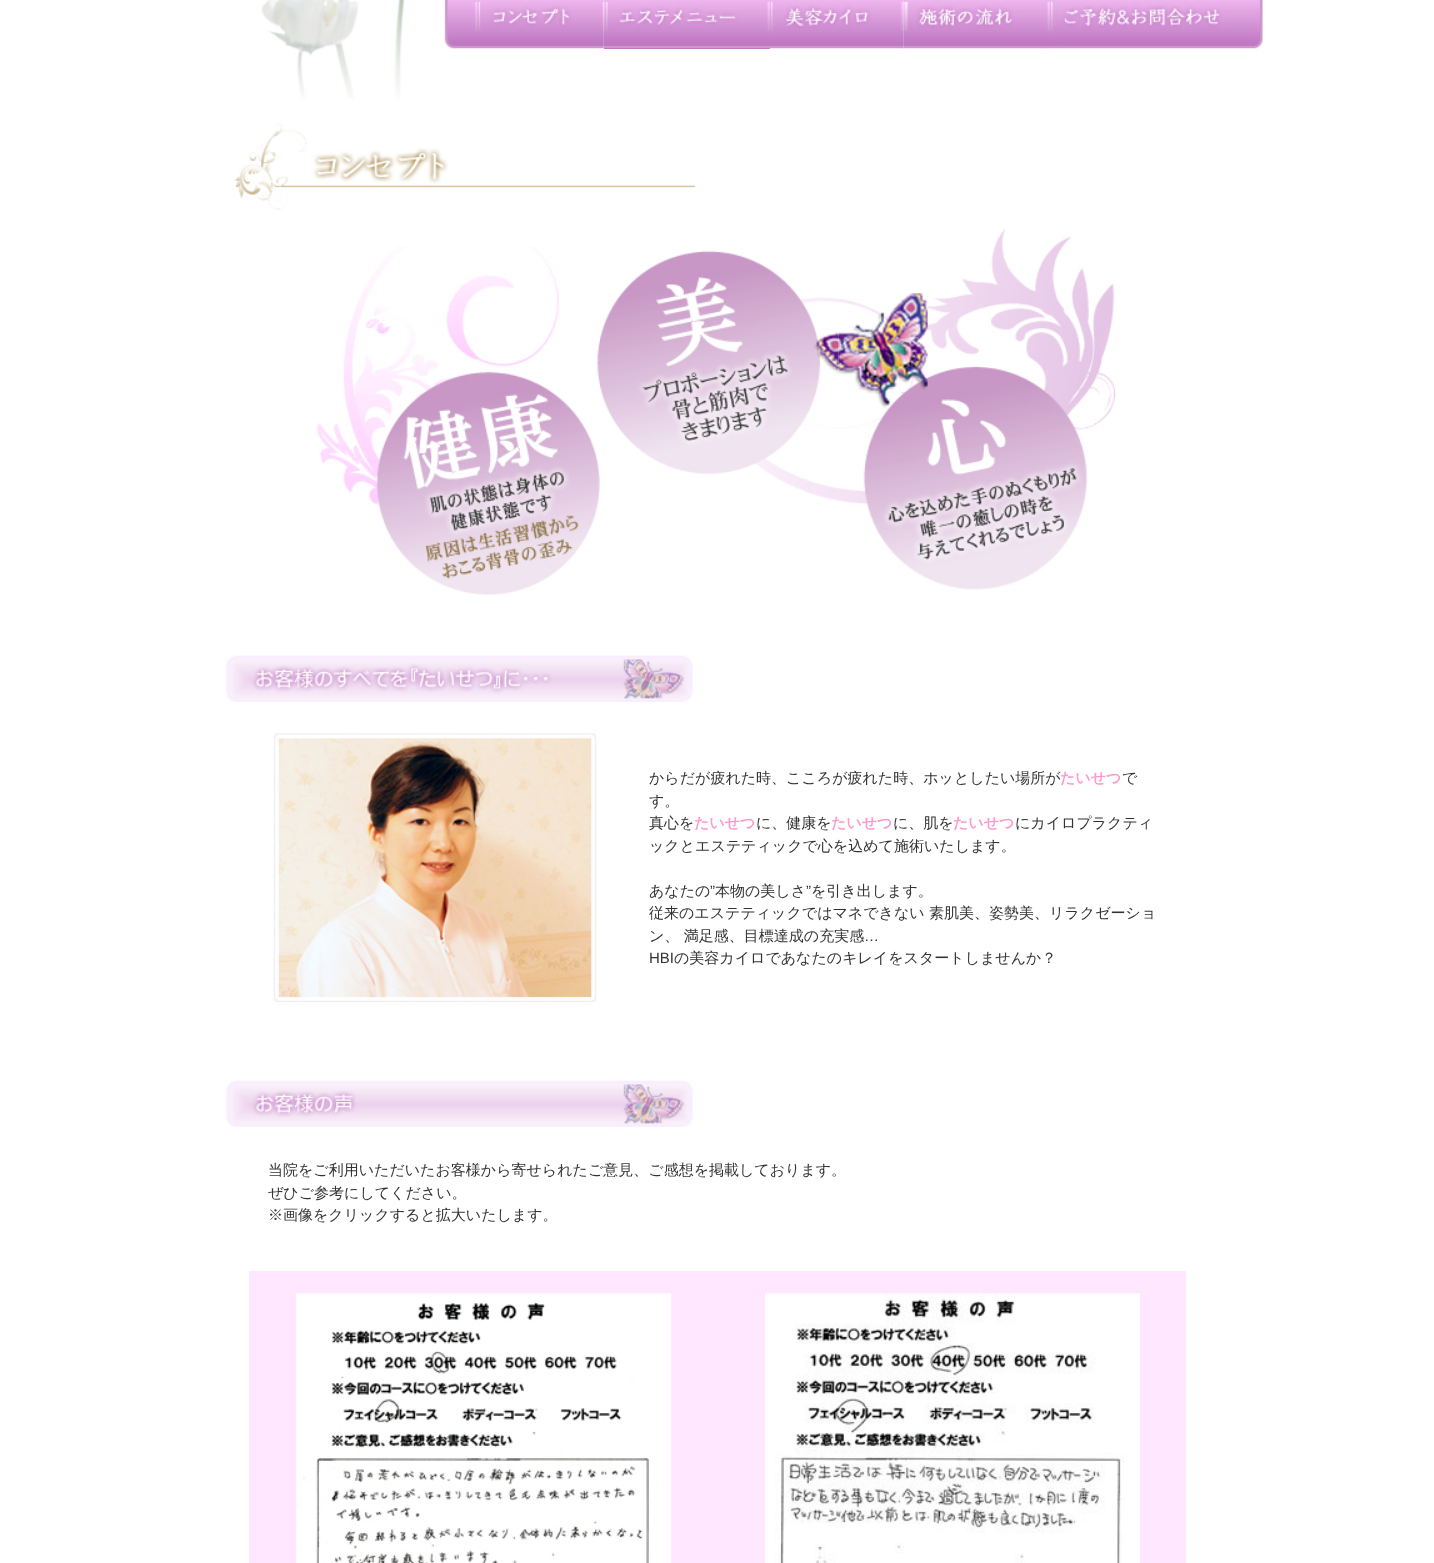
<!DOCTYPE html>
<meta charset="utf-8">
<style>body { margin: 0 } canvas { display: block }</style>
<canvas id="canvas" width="1434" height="1563"></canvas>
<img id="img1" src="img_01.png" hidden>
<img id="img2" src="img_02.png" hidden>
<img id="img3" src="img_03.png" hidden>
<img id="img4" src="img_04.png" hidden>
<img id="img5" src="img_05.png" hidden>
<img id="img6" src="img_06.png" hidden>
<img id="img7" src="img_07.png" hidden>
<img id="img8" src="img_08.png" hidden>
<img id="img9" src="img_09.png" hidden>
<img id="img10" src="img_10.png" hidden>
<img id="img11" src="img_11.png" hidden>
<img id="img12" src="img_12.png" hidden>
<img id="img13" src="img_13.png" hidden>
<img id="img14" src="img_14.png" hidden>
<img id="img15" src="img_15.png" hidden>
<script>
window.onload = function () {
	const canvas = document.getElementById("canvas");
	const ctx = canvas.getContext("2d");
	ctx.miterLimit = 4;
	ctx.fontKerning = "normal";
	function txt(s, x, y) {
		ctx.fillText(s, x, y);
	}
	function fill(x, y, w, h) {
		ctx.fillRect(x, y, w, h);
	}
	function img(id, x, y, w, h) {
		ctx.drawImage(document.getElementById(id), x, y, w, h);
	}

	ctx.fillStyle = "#FFFFFF";
	fill(0, 0, 1434, 1563);
	img("img1", 261, 0, 144, 99);
	img("img2", 444, 0, 160, 49);
	ctx.fillStyle = "#BC72BF";
	fill(604, 48, 166, 1);
	img("img3", 603, 0, 167, 49);
	img("img4", 770, 0, 134, 49);
	img("img5", 903, 0, 147, 49);
	img("img6", 1050, 0, 213, 49);
	img("img7", 235, 123, 461, 87);
	img("img8", 316, 246, 284, 349);
	img("img9", 600, 250, 239, 251);
	img("img10", 838, 228, 278, 362);
	img("img11", 226, 655, 467, 47);
	img("img12", 273, 733, 324, 269);
	img("img13", 226, 1080, 467, 47);
	ctx.fillStyle = "#FFE7FF";
	fill(249, 1271, 937, 292);
	img("img14", 296, 1293, 376, 270);
	img("img15", 765, 1293, 375, 270);
	ctx.font = "500 15px WenQuanYi Zen Hei";
	ctx.fillStyle = "#333333";
	txt("からだが疲れた時、こころが疲れた時、ホッとしたい場所が", 649, 783);
	ctx.font = "bold 15px WenQuanYi Zen Hei";
	ctx.fillStyle = "#FF99CC";
	txt("たいせつ", 1060, 783);
	ctx.font = "500 15px WenQuanYi Zen Hei";
	ctx.fillStyle = "#333333";
	txt("で", 1122, 783);
	txt("す。", 649, 806);
	txt("真心を", 649, 828);
	ctx.font = "bold 15px WenQuanYi Zen Hei";
	ctx.fillStyle = "#FF99CC";
	txt("たいせつ", 694, 828);
	ctx.font = "500 15px WenQuanYi Zen Hei";
	ctx.fillStyle = "#333333";
	txt("に、健康を", 756, 828);
	ctx.font = "bold 15px WenQuanYi Zen Hei";
	ctx.fillStyle = "#FF99CC";
	txt("たいせつ", 831, 828);
	ctx.font = "500 15px WenQuanYi Zen Hei";
	ctx.fillStyle = "#333333";
	txt("に、肌を", 893, 828);
	ctx.font = "bold 15px WenQuanYi Zen Hei";
	ctx.fillStyle = "#FF99CC";
	txt("たいせつ", 953, 828);
	ctx.font = "500 15px WenQuanYi Zen Hei";
	ctx.fillStyle = "#333333";
	txt("にカイロプラクティ", 1015, 828);
	txt("ックとエステティックで心を込めて施術いたします。", 649, 851);
	txt("あなたの", 649, 896);
	ctx.font = "15px Liberation Sans";
	txt("”", 710, 896);
	ctx.font = "500 15px WenQuanYi Zen Hei";
	txt("本物の美しさ", 715, 896);
	ctx.font = "15px Liberation Sans";
	txt("”", 806, 896);
	ctx.font = "500 15px WenQuanYi Zen Hei";
	txt("を引き出します。", 811, 896);
	txt("従来のエステティックではマネできない 素肌美、姿勢美、リラクゼーショ", 649, 918);
	txt("ン、 満足感、目標達成の充実感", 649, 941);
	ctx.font = "15px Liberation Sans";
	txt("…", 864, 941);
	txt("HBI", 649, 963);
	ctx.font = "500 15px WenQuanYi Zen Hei";
	txt("の美容カイロであなたのキレイをスタートしませんか？", 674, 963);
	txt("当院をご利用いただいたお客様から寄せられたご意見、ご感想を掲載しております。", 268, 1175);
	txt("ぜひご参考にしてください。", 268, 1198);
	txt("※画像をクリックすると拡大いたします。", 268, 1220);
};
</script>
